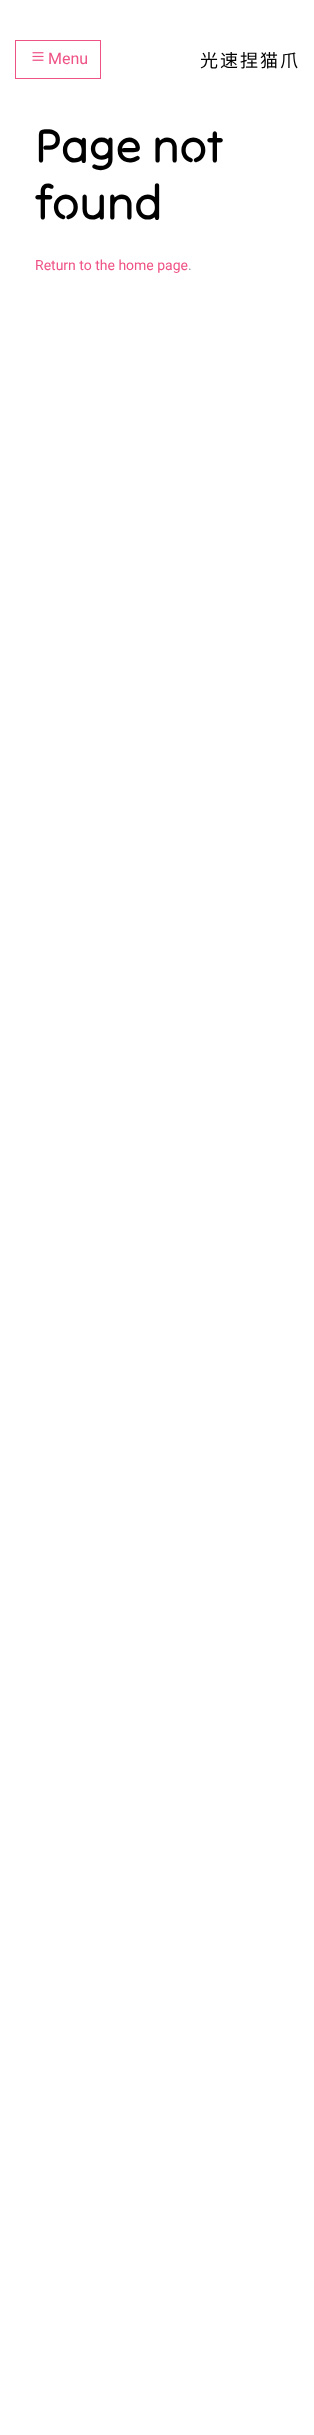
<!DOCTYPE html>
<meta charset="utf-8">
<style>body { margin: 0 } canvas { display: block }</style>
<canvas id="canvas" width="314" height="2435"></canvas>
<img id="img1" src="img_01.png" hidden>
<script>
window.onload = function () {
	const canvas = document.getElementById("canvas");
	const ctx = canvas.getContext("2d");
	ctx.miterLimit = 4;
	ctx.fontKerning = "normal";
	function txt(s, x, y) {
		ctx.fillText(s, x, y);
	}
	function fill(x, y, w, h) {
		ctx.fillRect(x, y, w, h);
	}
	function img(id, x, y, w, h) {
		ctx.drawImage(document.getElementById(id), x, y, w, h);
	}

	ctx.fillStyle = "#FFFFFF";
	fill(0, 0, 314, 2435);
	ctx.strokeStyle = "#EF5285";
	ctx.strokeRect(15.5, 40.5, 85, 38);
	img("img1", 32, 52, 12, 9);
	ctx.font = "16px Roboto";
	ctx.fillStyle = "#EF5285";
	txt("Menu", 48, 64);
	ctx.letterSpacing = "2px";
	ctx.font = "18px Noto Sans CJK SC";
	ctx.fillStyle = "#000000";
	txt("光速捏猫爪", 200, 67);
	ctx.letterSpacing = "0px";
	ctx.font = "48px Tilt Neon";
	txt("Page not", 35, 162);
	txt("found", 35, 219);
	ctx.font = "14px Roboto";
	ctx.fillStyle = "#EF5285";
	txt("Return to the home page", 35, 270);
	ctx.fillStyle = "#999999";
	txt(".", 188, 270);
};
</script>
